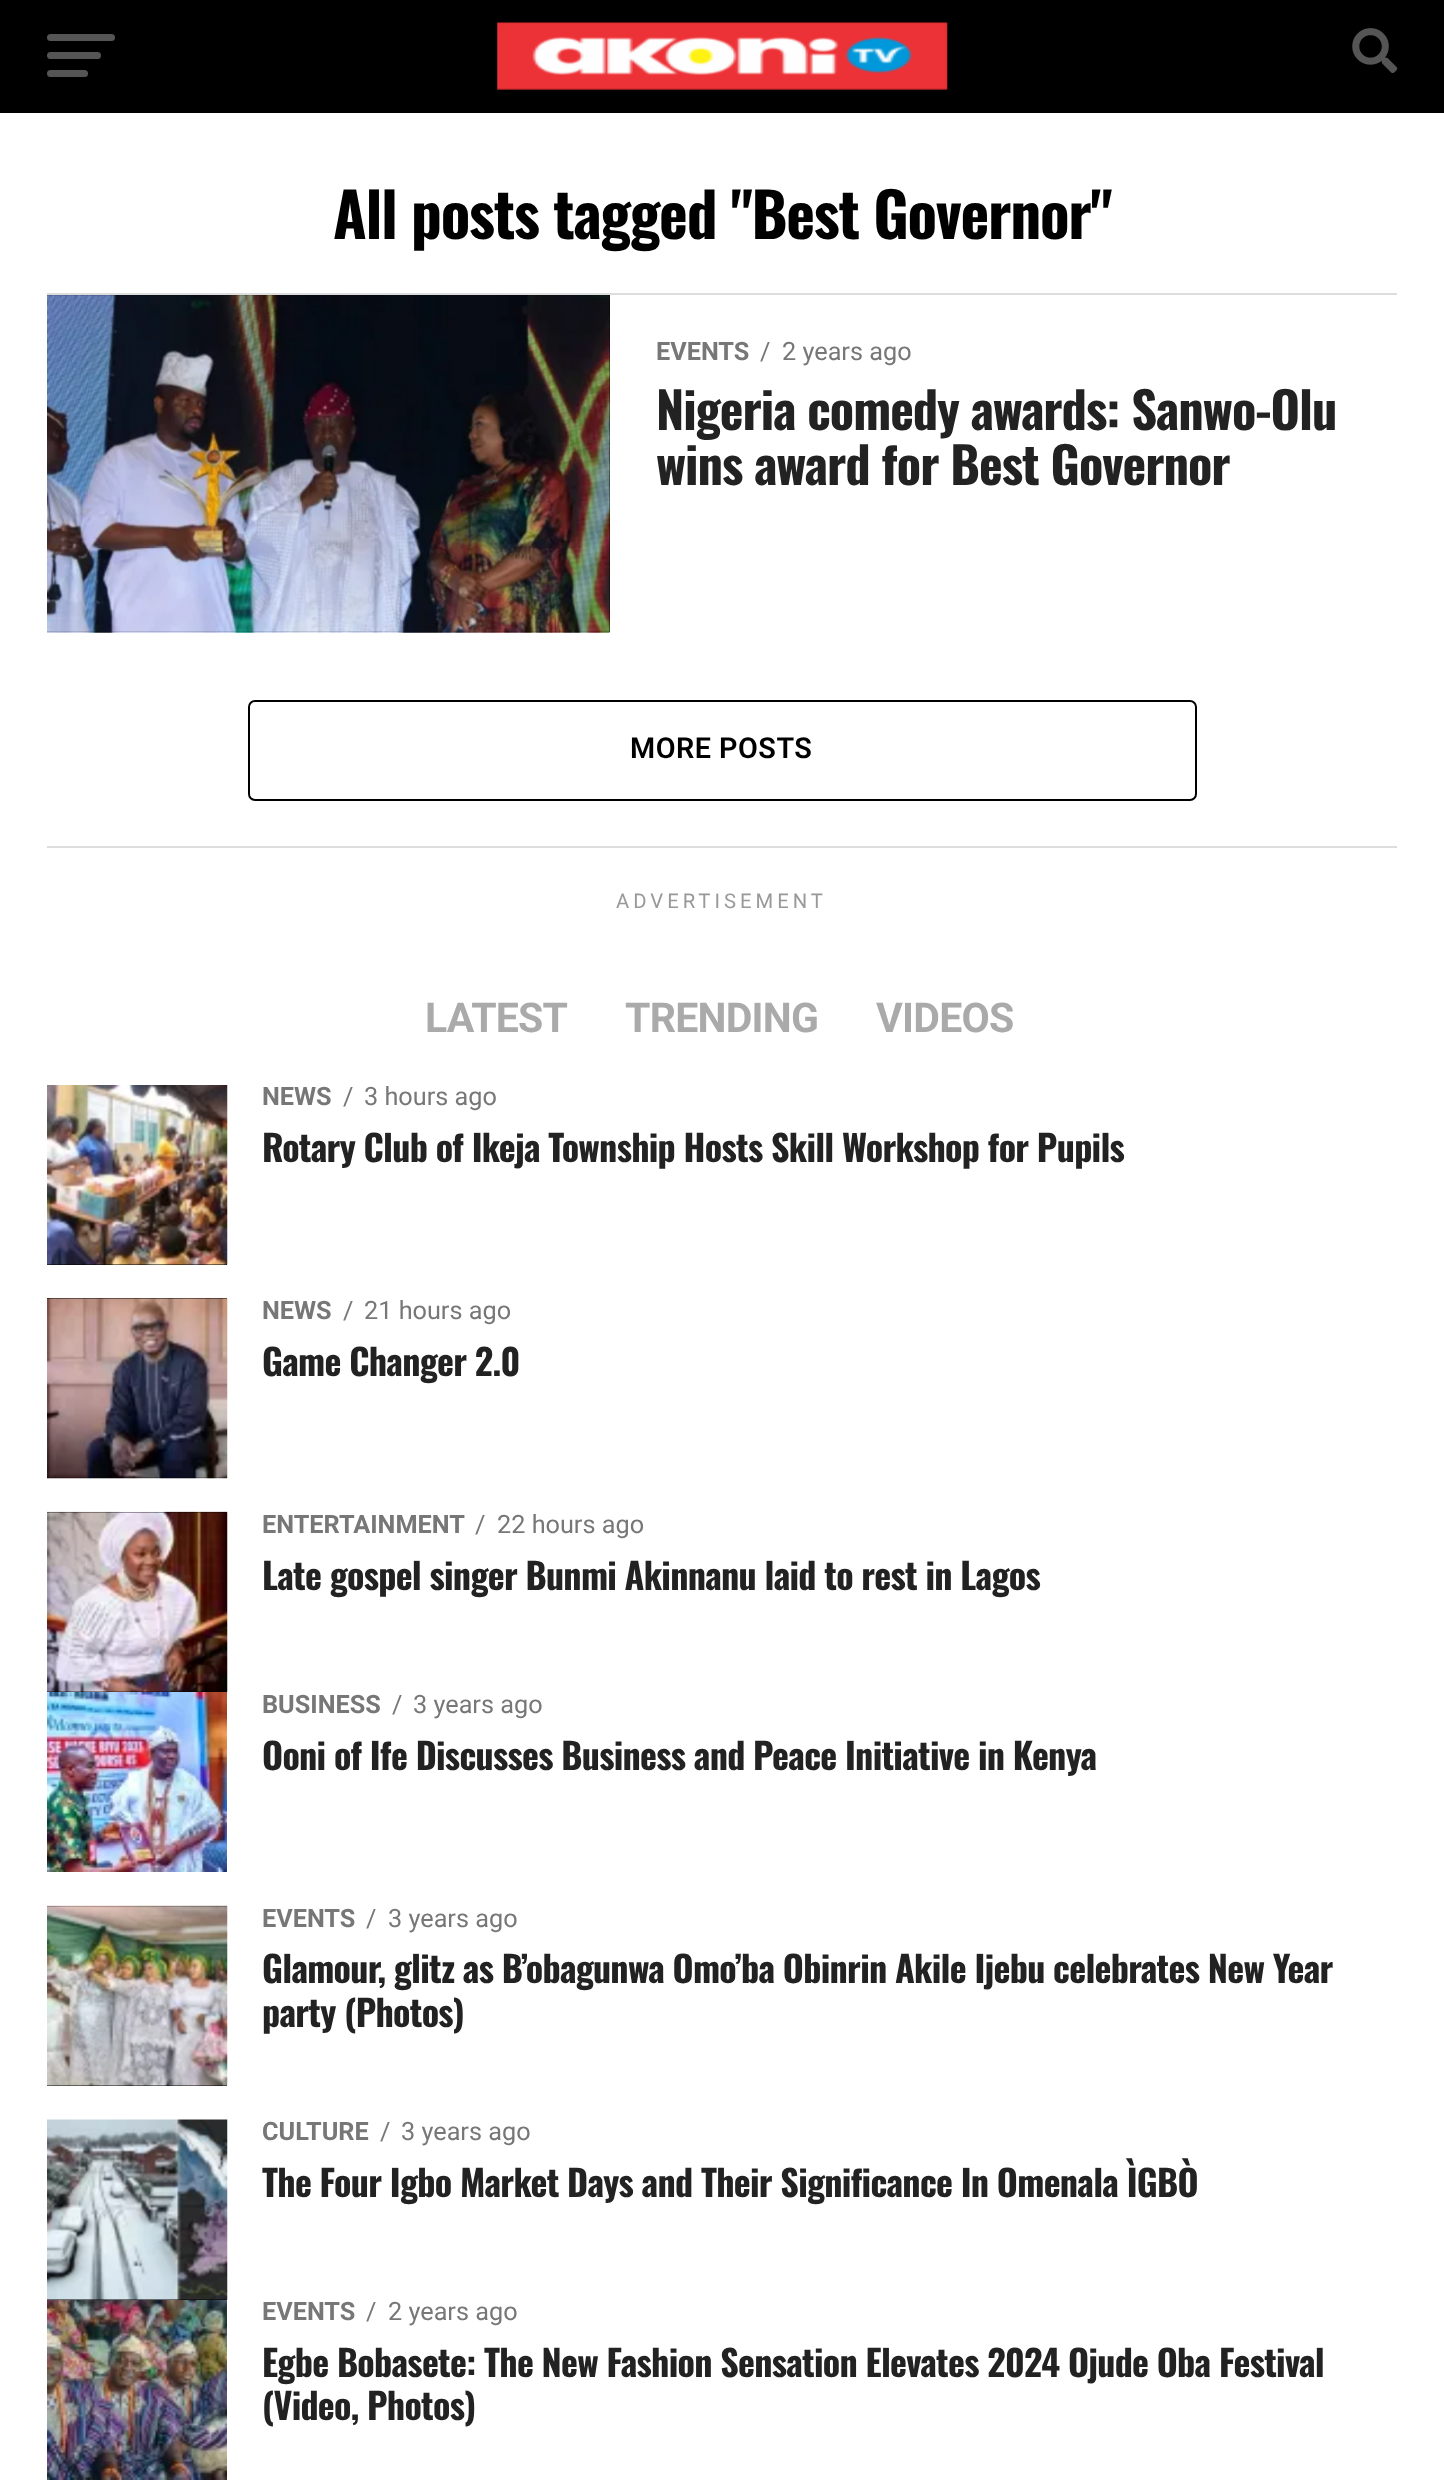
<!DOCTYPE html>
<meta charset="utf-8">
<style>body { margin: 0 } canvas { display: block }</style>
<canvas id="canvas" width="1444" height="2486"></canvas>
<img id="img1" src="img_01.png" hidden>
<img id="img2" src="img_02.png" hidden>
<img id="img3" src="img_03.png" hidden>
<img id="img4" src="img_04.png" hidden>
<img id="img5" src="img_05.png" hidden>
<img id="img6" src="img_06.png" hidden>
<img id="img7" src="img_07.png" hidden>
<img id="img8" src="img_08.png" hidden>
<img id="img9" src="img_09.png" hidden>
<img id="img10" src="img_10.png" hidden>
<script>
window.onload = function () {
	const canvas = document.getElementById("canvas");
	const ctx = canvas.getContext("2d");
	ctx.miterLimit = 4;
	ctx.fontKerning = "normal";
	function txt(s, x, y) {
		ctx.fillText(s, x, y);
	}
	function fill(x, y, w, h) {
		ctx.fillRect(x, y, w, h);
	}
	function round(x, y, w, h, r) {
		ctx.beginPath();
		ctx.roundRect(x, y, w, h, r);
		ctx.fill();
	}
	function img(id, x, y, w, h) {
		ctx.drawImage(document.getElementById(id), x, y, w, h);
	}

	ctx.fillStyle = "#FFFFFF";
	fill(0, 0, 1444, 2486);
	ctx.fillStyle = "#000000";
	fill(0, 0, 1444, 113);
	ctx.fillStyle = "#555555";
	round(47, 34, 68, 7, 3.5);
	round(47, 52, 54, 7, 3.5);
	round(47, 70, 41, 7, 3.5);
	img("img1", 497, 22, 451, 68);
	img("img2", 1352, 28, 46, 46);
	ctx.fillStyle = "#DDDDDD";
	fill(47, 293, 1350, 2);
	ctx.fillStyle = "#000000";
	fill(47, 295, 563, 337);
	img("img3", 47, 295, 563, 338);
	ctx.beginPath();
	ctx.roundRect(249, 701, 947, 99, 6);
	ctx.strokeStyle = "#000000";
	ctx.lineWidth = 2;
	ctx.stroke();
	ctx.fillStyle = "#DDDDDD";
	fill(47, 846, 1350, 2);
	ctx.fillStyle = "#000000";
	fill(47, 1264, 180, 1);
	img("img4", 47, 1085, 181, 180);
	fill(47, 1298, 180, 180);
	img("img5", 47, 1297, 181, 182);
	fill(47, 1512, 180, 180);
	img("img6", 47, 1511, 181, 182);
	img("img7", 47, 1692, 180, 180);
	fill(47, 1906, 180, 180);
	img("img8", 47, 1905, 181, 182);
	fill(47, 2299, 180, 1);
	img("img9", 47, 2119, 181, 181);
	img("img10", 47, 2300, 180, 180);
	ctx.letterSpacing = "-1.25px";
	ctx.font = "bold 61.25px Oswald";
	txt("All posts tagged \"Best Governor\"", 333, 239);
	ctx.letterSpacing = "0px";
	ctx.font = "bold 25.25px Roboto";
	ctx.fillStyle = "#777777";
	txt("EVENTS", 656, 360);
	ctx.font = "25.25px Roboto";
	txt("/", 760, 360);
	txt("2 years ago", 782, 360);
	ctx.letterSpacing = "-1px";
	ctx.font = "bold 50.4px Oswald";
	ctx.fillStyle = "#222222";
	txt("Nigeria comedy awards: Sanwo-Olu", 656, 430);
	txt("wins award for Best Governor", 656, 485);
	ctx.letterSpacing = "0.5px";
	ctx.font = "600 28.75px Roboto";
	ctx.fillStyle = "#000000";
	txt("MORE POSTS", 630, 758);
	ctx.letterSpacing = "4px";
	ctx.font = "20.25px Roboto";
	ctx.fillStyle = "#999999";
	txt("ADVERTISEMENT", 616, 908);
	ctx.letterSpacing = "-0.75px";
	ctx.font = "bold 41px Roboto";
	ctx.fillStyle = "#AAAAAA";
	txt("LATEST", 425, 1032);
	txt("TRENDING", 625, 1032);
	txt("VIDEOS", 876, 1032);
	ctx.letterSpacing = "0px";
	ctx.font = "bold 25.25px Roboto";
	ctx.fillStyle = "#777777";
	txt("NEWS", 262, 1105);
	ctx.font = "25.25px Roboto";
	txt("/", 343, 1105);
	txt("3 hours ago", 364, 1105);
	ctx.letterSpacing = "-0.72px";
	ctx.font = "bold 36px Oswald";
	ctx.fillStyle = "#222222";
	txt("Rotary Club of Ikeja Township Hosts Skill Workshop for Pupils", 262, 1162);
	ctx.letterSpacing = "0px";
	ctx.font = "bold 25.25px Roboto";
	ctx.fillStyle = "#777777";
	txt("NEWS", 262, 1319);
	ctx.font = "25.25px Roboto";
	txt("/", 343, 1319);
	txt("21 hours ago", 364, 1319);
	ctx.letterSpacing = "-0.72px";
	ctx.font = "bold 36px Oswald";
	ctx.fillStyle = "#222222";
	txt("Game Changer 2.0", 262, 1376);
	ctx.letterSpacing = "0px";
	ctx.font = "bold 25.25px Roboto";
	ctx.fillStyle = "#777777";
	txt("ENTERTAINMENT", 262, 1533);
	ctx.font = "25.25px Roboto";
	txt("/", 475, 1533);
	txt("22 hours ago", 497, 1533);
	ctx.letterSpacing = "-0.72px";
	ctx.font = "bold 36px Oswald";
	ctx.fillStyle = "#222222";
	txt("Late gospel singer Bunmi Akinnanu laid to rest in Lagos", 262, 1590);
	ctx.letterSpacing = "0px";
	ctx.font = "bold 25.25px Roboto";
	ctx.fillStyle = "#777777";
	txt("BUSINESS", 262, 1713);
	ctx.font = "25.25px Roboto";
	txt("/", 392, 1713);
	txt("3 years ago", 413, 1713);
	ctx.letterSpacing = "-0.72px";
	ctx.font = "bold 36px Oswald";
	ctx.fillStyle = "#222222";
	txt("Ooni of Ife Discusses Business and Peace Initiative in Kenya", 262, 1770);
	ctx.letterSpacing = "0px";
	ctx.font = "bold 25.25px Roboto";
	ctx.fillStyle = "#777777";
	txt("EVENTS", 262, 1927);
	ctx.font = "25.25px Roboto";
	txt("/", 366, 1927);
	txt("3 years ago", 388, 1927);
	ctx.letterSpacing = "-0.72px";
	ctx.font = "bold 36px Oswald";
	ctx.fillStyle = "#222222";
	txt("Glamour, glitz as B’obagunwa Omo’ba Obinrin Akile Ijebu celebrates New Year", 262, 1983);
	txt("party (Photos)", 262, 2027);
	ctx.letterSpacing = "0px";
	ctx.font = "bold 25.25px Roboto";
	ctx.fillStyle = "#777777";
	txt("CULTURE", 262, 2140);
	ctx.font = "25.25px Roboto";
	txt("/", 380, 2140);
	txt("3 years ago", 401, 2140);
	ctx.letterSpacing = "-0.72px";
	ctx.font = "bold 36px Oswald";
	ctx.fillStyle = "#222222";
	txt("The Four Igbo Market Days and Their Significance In Omenala ÌGBÒ", 262, 2197);
	ctx.letterSpacing = "0px";
	ctx.font = "bold 25.25px Roboto";
	ctx.fillStyle = "#777777";
	txt("EVENTS", 262, 2320);
	ctx.font = "25.25px Roboto";
	txt("/", 366, 2320);
	txt("2 years ago", 388, 2320);
	ctx.letterSpacing = "-0.72px";
	ctx.font = "bold 36px Oswald";
	ctx.fillStyle = "#222222";
	txt("Egbe Bobasete: The New Fashion Sensation Elevates 2024 Ojude Oba Festival", 262, 2377);
	txt("(Video, Photos)", 262, 2420);
};
</script>
